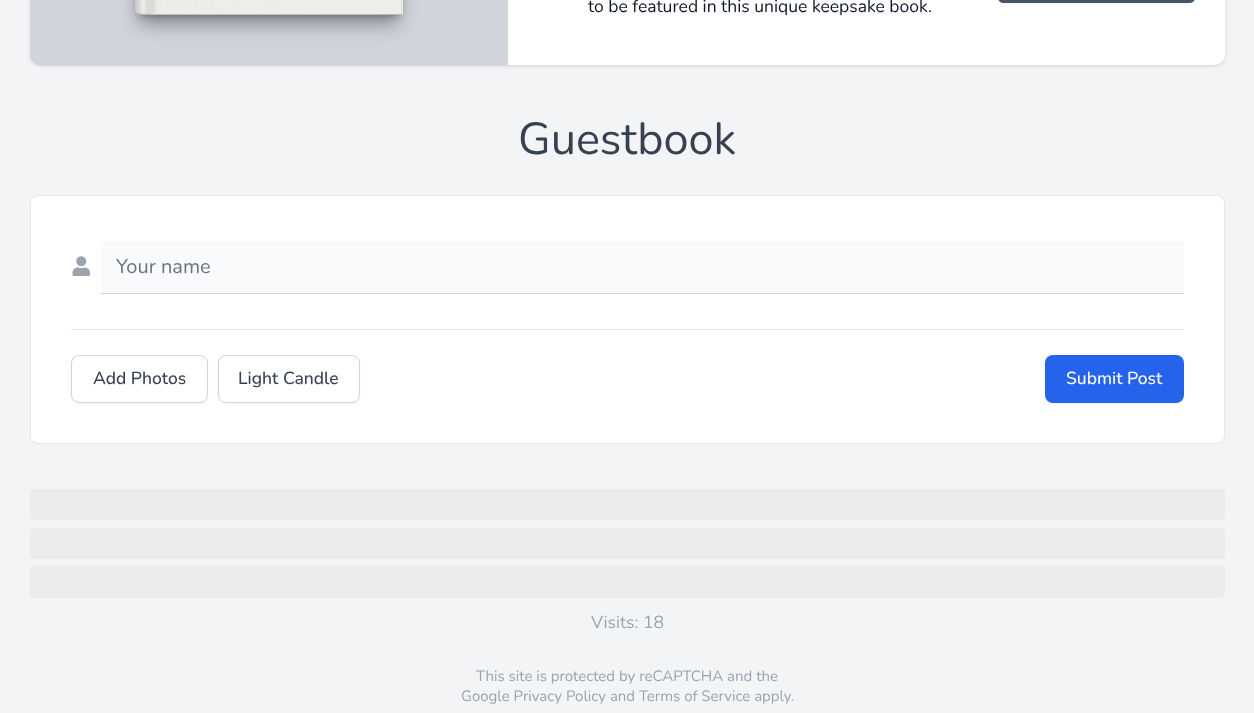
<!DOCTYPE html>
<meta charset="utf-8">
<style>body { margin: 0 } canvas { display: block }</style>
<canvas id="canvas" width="1254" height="713"></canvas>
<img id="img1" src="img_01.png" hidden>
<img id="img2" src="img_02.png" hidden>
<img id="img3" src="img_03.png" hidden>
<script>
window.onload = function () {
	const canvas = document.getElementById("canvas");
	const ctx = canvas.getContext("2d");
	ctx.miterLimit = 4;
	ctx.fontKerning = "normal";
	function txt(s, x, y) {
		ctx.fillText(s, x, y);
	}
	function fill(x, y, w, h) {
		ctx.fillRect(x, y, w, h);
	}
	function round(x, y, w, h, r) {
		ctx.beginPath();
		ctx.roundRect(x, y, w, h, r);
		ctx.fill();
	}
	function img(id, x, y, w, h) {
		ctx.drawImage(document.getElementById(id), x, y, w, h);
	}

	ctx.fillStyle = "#F3F4F6";
	fill(0, 0, 1254, 713);
	ctx.fillStyle = "rgba(0, 0, 0, 0.1)";
	ctx.filter = "blur(1px)";
	ctx.beginPath();
	ctx.roundRect(31, -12, 1193, 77, 9);
	ctx.fill();
	ctx.filter = "none";
	ctx.filter = "blur(2px)";
	ctx.beginPath();
	ctx.roundRect(30, -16, 1195, 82, 10);
	ctx.fill();
	ctx.filter = "none";
	ctx.fillStyle = "#FFFFFF";
	round(30, -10, 1195, 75, 10);
	ctx.fillStyle = "#D1D5DB";
	ctx.beginPath();
	ctx.moveTo(40, -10);
	ctx.lineTo(508, -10);
	ctx.lineTo(508, 65);
	ctx.lineTo(40, 65);
	ctx.bezierCurveTo(34.5, 65, 30, 60.5, 30, 55);
	ctx.lineTo(30, 0);
	ctx.bezierCurveTo(30, -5.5, 34.5, -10, 40, -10);
	ctx.closePath();
	ctx.fill();
	ctx.fillStyle = "rgba(0, 0, 0, 0.35)";
	ctx.filter = "blur(4px)";
	ctx.beginPath();
	ctx.rect(140, -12, 258, 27);
	ctx.fill();
	ctx.filter = "none";
	ctx.filter = "blur(9.5px)";
	ctx.beginPath();
	ctx.rect(139, -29, 260, 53);
	ctx.fill();
	ctx.filter = "none";
	ctx.fillStyle = "#FFFFFF";
	ctx.beginPath();
	ctx.moveTo(139, -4);
	ctx.lineTo(400.5, -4);
	ctx.bezierCurveTo(402, -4, 403, -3, 403, -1.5);
	ctx.lineTo(403, 14);
	ctx.bezierCurveTo(403, 14.5, 402.5, 15, 402, 15);
	ctx.lineTo(139, 15);
	ctx.bezierCurveTo(137, 15, 135, 13, 135, 11);
	ctx.lineTo(135, 0);
	ctx.bezierCurveTo(135, -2, 137, -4, 139, -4);
	ctx.closePath();
	ctx.fill();
	img("img1", 135, 0, 268, 15);
	img("img2", 135, 0, 268, 16);
	ctx.fillStyle = "rgba(0, 0, 0, 0.05)";
	ctx.filter = "blur(1px)";
	ctx.beginPath();
	ctx.roundRect(998, -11, 197, 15, 8);
	ctx.fill();
	ctx.filter = "none";
	ctx.fillStyle = "#475569";
	round(998, -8, 197, 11, 8);
	ctx.fillStyle = "#FFFFFF";
	ctx.beginPath();
	ctx.roundRect(30.5, 195.5, 1194, 248, 7.5);
	ctx.fill();
	ctx.strokeStyle = "#E5E7EB";
	ctx.stroke();
	img("img3", 72, 256, 18, 20);
	ctx.fillStyle = "#D1D5DB";
	fill(101, 293, 1083, 1);
	ctx.fillStyle = "#F9FAFB";
	fill(101, 241, 1083, 52);
	ctx.fillStyle = "#E5E7EB";
	fill(71, 329, 1113, 1);
	ctx.fillStyle = "rgba(0, 0, 0, 0.05)";
	ctx.filter = "blur(1px)";
	ctx.beginPath();
	ctx.roundRect(71, 356, 137, 48, 8);
	ctx.fill();
	ctx.filter = "none";
	ctx.fillStyle = "#FFFFFF";
	ctx.beginPath();
	ctx.roundRect(71.5, 355.5, 136, 47, 7.5);
	ctx.fill();
	ctx.strokeStyle = "#D1D5DB";
	ctx.stroke();
	ctx.fillStyle = "rgba(0, 0, 0, 0.05)";
	ctx.filter = "blur(1px)";
	ctx.beginPath();
	ctx.roundRect(218, 356, 142, 48, 8);
	ctx.fill();
	ctx.filter = "none";
	ctx.fillStyle = "#FFFFFF";
	ctx.beginPath();
	ctx.roundRect(218.5, 355.5, 141, 47, 7.5);
	ctx.fill();
	ctx.stroke();
	ctx.fillStyle = "rgba(0, 0, 0, 0.05)";
	ctx.filter = "blur(1px)";
	ctx.beginPath();
	ctx.roundRect(1045, 356, 139, 48, 8);
	ctx.fill();
	ctx.filter = "none";
	ctx.fillStyle = "#2563EB";
	round(1045, 355, 139, 48, 8);
	ctx.fillStyle = "#EBEBEB";
	round(30, 489, 1195, 31, 5);
	round(30, 528, 1195, 31, 5);
	round(30, 566, 1195, 32, 5);
	ctx.font = "17.5px Nunito";
	ctx.fillStyle = "#111827";
	txt("to be featured in this unique keepsake book.", 588, 12);
	ctx.font = "45px Nunito";
	ctx.fillStyle = "#374151";
	txt("Guestbook", 518, 154);
	ctx.font = "20px Nunito";
	ctx.fillStyle = "#6B7280";
	txt("Your name", 116, 273);
	ctx.font = "500 17.5px Nunito";
	ctx.fillStyle = "#374151";
	txt("Add Photos", 93, 384);
	txt("Light Candle", 238, 384);
	ctx.fillStyle = "#FFFFFF";
	txt("Submit Post", 1066, 384);
	ctx.font = "17.5px Nunito";
	ctx.fillStyle = "#9CA3AF";
	txt("Visits: 18", 591, 628);
	ctx.font = "15px Nunito";
	txt("This site is protected by reCAPTCHA and the", 476, 681);
	txt("Google Privacy Policy and Terms of Service apply.", 461, 701);
};
</script>
